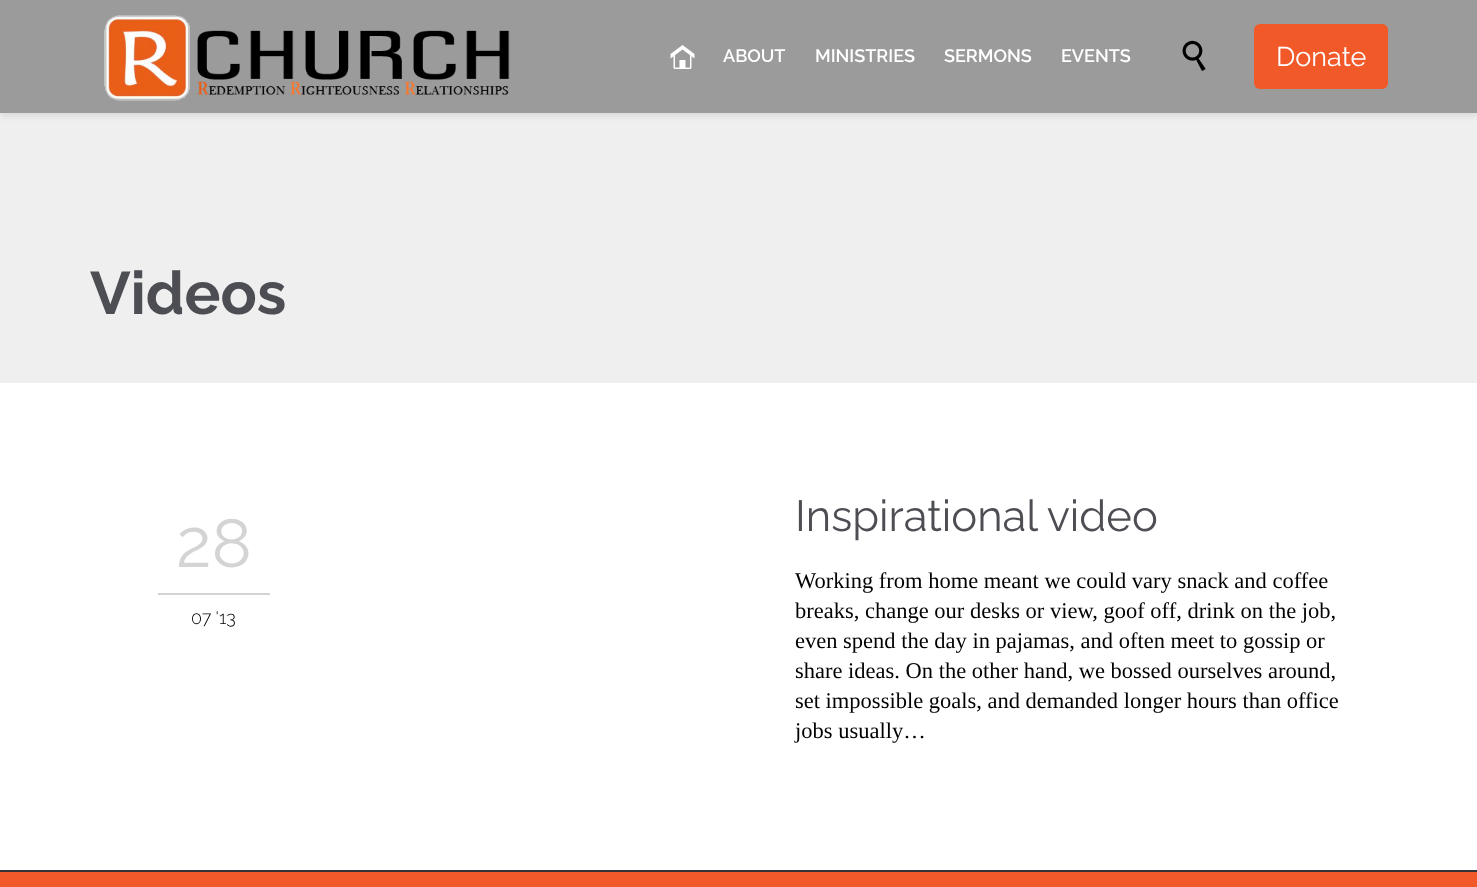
<!DOCTYPE html>
<meta charset="utf-8">
<style>body { margin: 0 } canvas { display: block }</style>
<canvas id="canvas" width="1477" height="887"></canvas>
<img id="img1" src="img_01.png" hidden>
<img id="img2" src="img_02.png" hidden>
<img id="img3" src="img_03.png" hidden>
<script>
window.onload = function () {
	const canvas = document.getElementById("canvas");
	const ctx = canvas.getContext("2d");
	ctx.miterLimit = 4;
	ctx.fontKerning = "normal";
	function txt(s, x, y) {
		ctx.fillText(s, x, y);
	}
	function fill(x, y, w, h) {
		ctx.fillRect(x, y, w, h);
	}
	function round(x, y, w, h, r) {
		ctx.beginPath();
		ctx.roundRect(x, y, w, h, r);
		ctx.fill();
	}
	function img(id, x, y, w, h) {
		ctx.drawImage(document.getElementById(id), x, y, w, h);
	}

	ctx.fillStyle = "#EFEFEF";
	fill(0, 0, 1477, 887);
	ctx.fillStyle = "rgba(0, 0, 0, 0.09)";
	ctx.filter = "blur(3px)";
	ctx.beginPath();
	ctx.rect(0, -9, 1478, 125);
	ctx.fill();
	ctx.filter = "none";
	ctx.fillStyle = "#9B9B9B";
	fill(0, 0, 1477, 113);
	img("img1", 104, 15, 406, 86);
	img("img2", 670, 45, 25, 24);
	img("img3", 1182, 40, 24, 31);
	ctx.fillStyle = "#F25929";
	round(1254, 24, 134, 65, 6);
	ctx.fillStyle = "#FFFFFF";
	fill(0, 383, 1477, 487);
	ctx.fillStyle = "#D4D4D4";
	fill(158, 593, 112, 2);
	ctx.fillStyle = "#323336";
	fill(0, 870, 1477, 2);
	ctx.fillStyle = "#F25929";
	fill(0, 872, 1477, 15);
	ctx.font = "600 18px Raleway";
	ctx.fillStyle = "#FFFFFF";
	txt("ABOUT", 723, 62);
	txt("MINISTRIES", 815, 62);
	txt("SERMONS", 944, 62);
	txt("EVENTS", 1061, 62);
	ctx.font = "27px Raleway";
	txt("Donate", 1276, 66);
	ctx.font = "bold 60px Raleway";
	ctx.fillStyle = "#4D4E53";
	txt("Videos", 90, 314);
	ctx.font = "68px Raleway";
	ctx.fillStyle = "#D4D4D4";
	txt("28", 176, 567);
	ctx.font = "300 18px Raleway";
	ctx.fillStyle = "#000000";
	txt("07 '13", 191, 624);
	ctx.font = "43.5px Raleway";
	ctx.fillStyle = "#4D4E53";
	txt("Inspirational video", 795, 531);
	ctx.font = "22.5px Liberation Serif";
	ctx.fillStyle = "#000000";
	txt("Working from home meant we could vary snack and coffee", 795, 588);
	txt("breaks, change our desks or view, goof off, drink on the job,", 795, 618);
	txt("even spend the day in pajamas, and often meet to gossip or", 795, 648);
	txt("share ideas. On the other hand, we bossed ourselves around,", 795, 678);
	txt("set impossible goals, and demanded longer hours than office", 795, 708);
	txt("jobs usually…", 795, 738);
};
</script>
